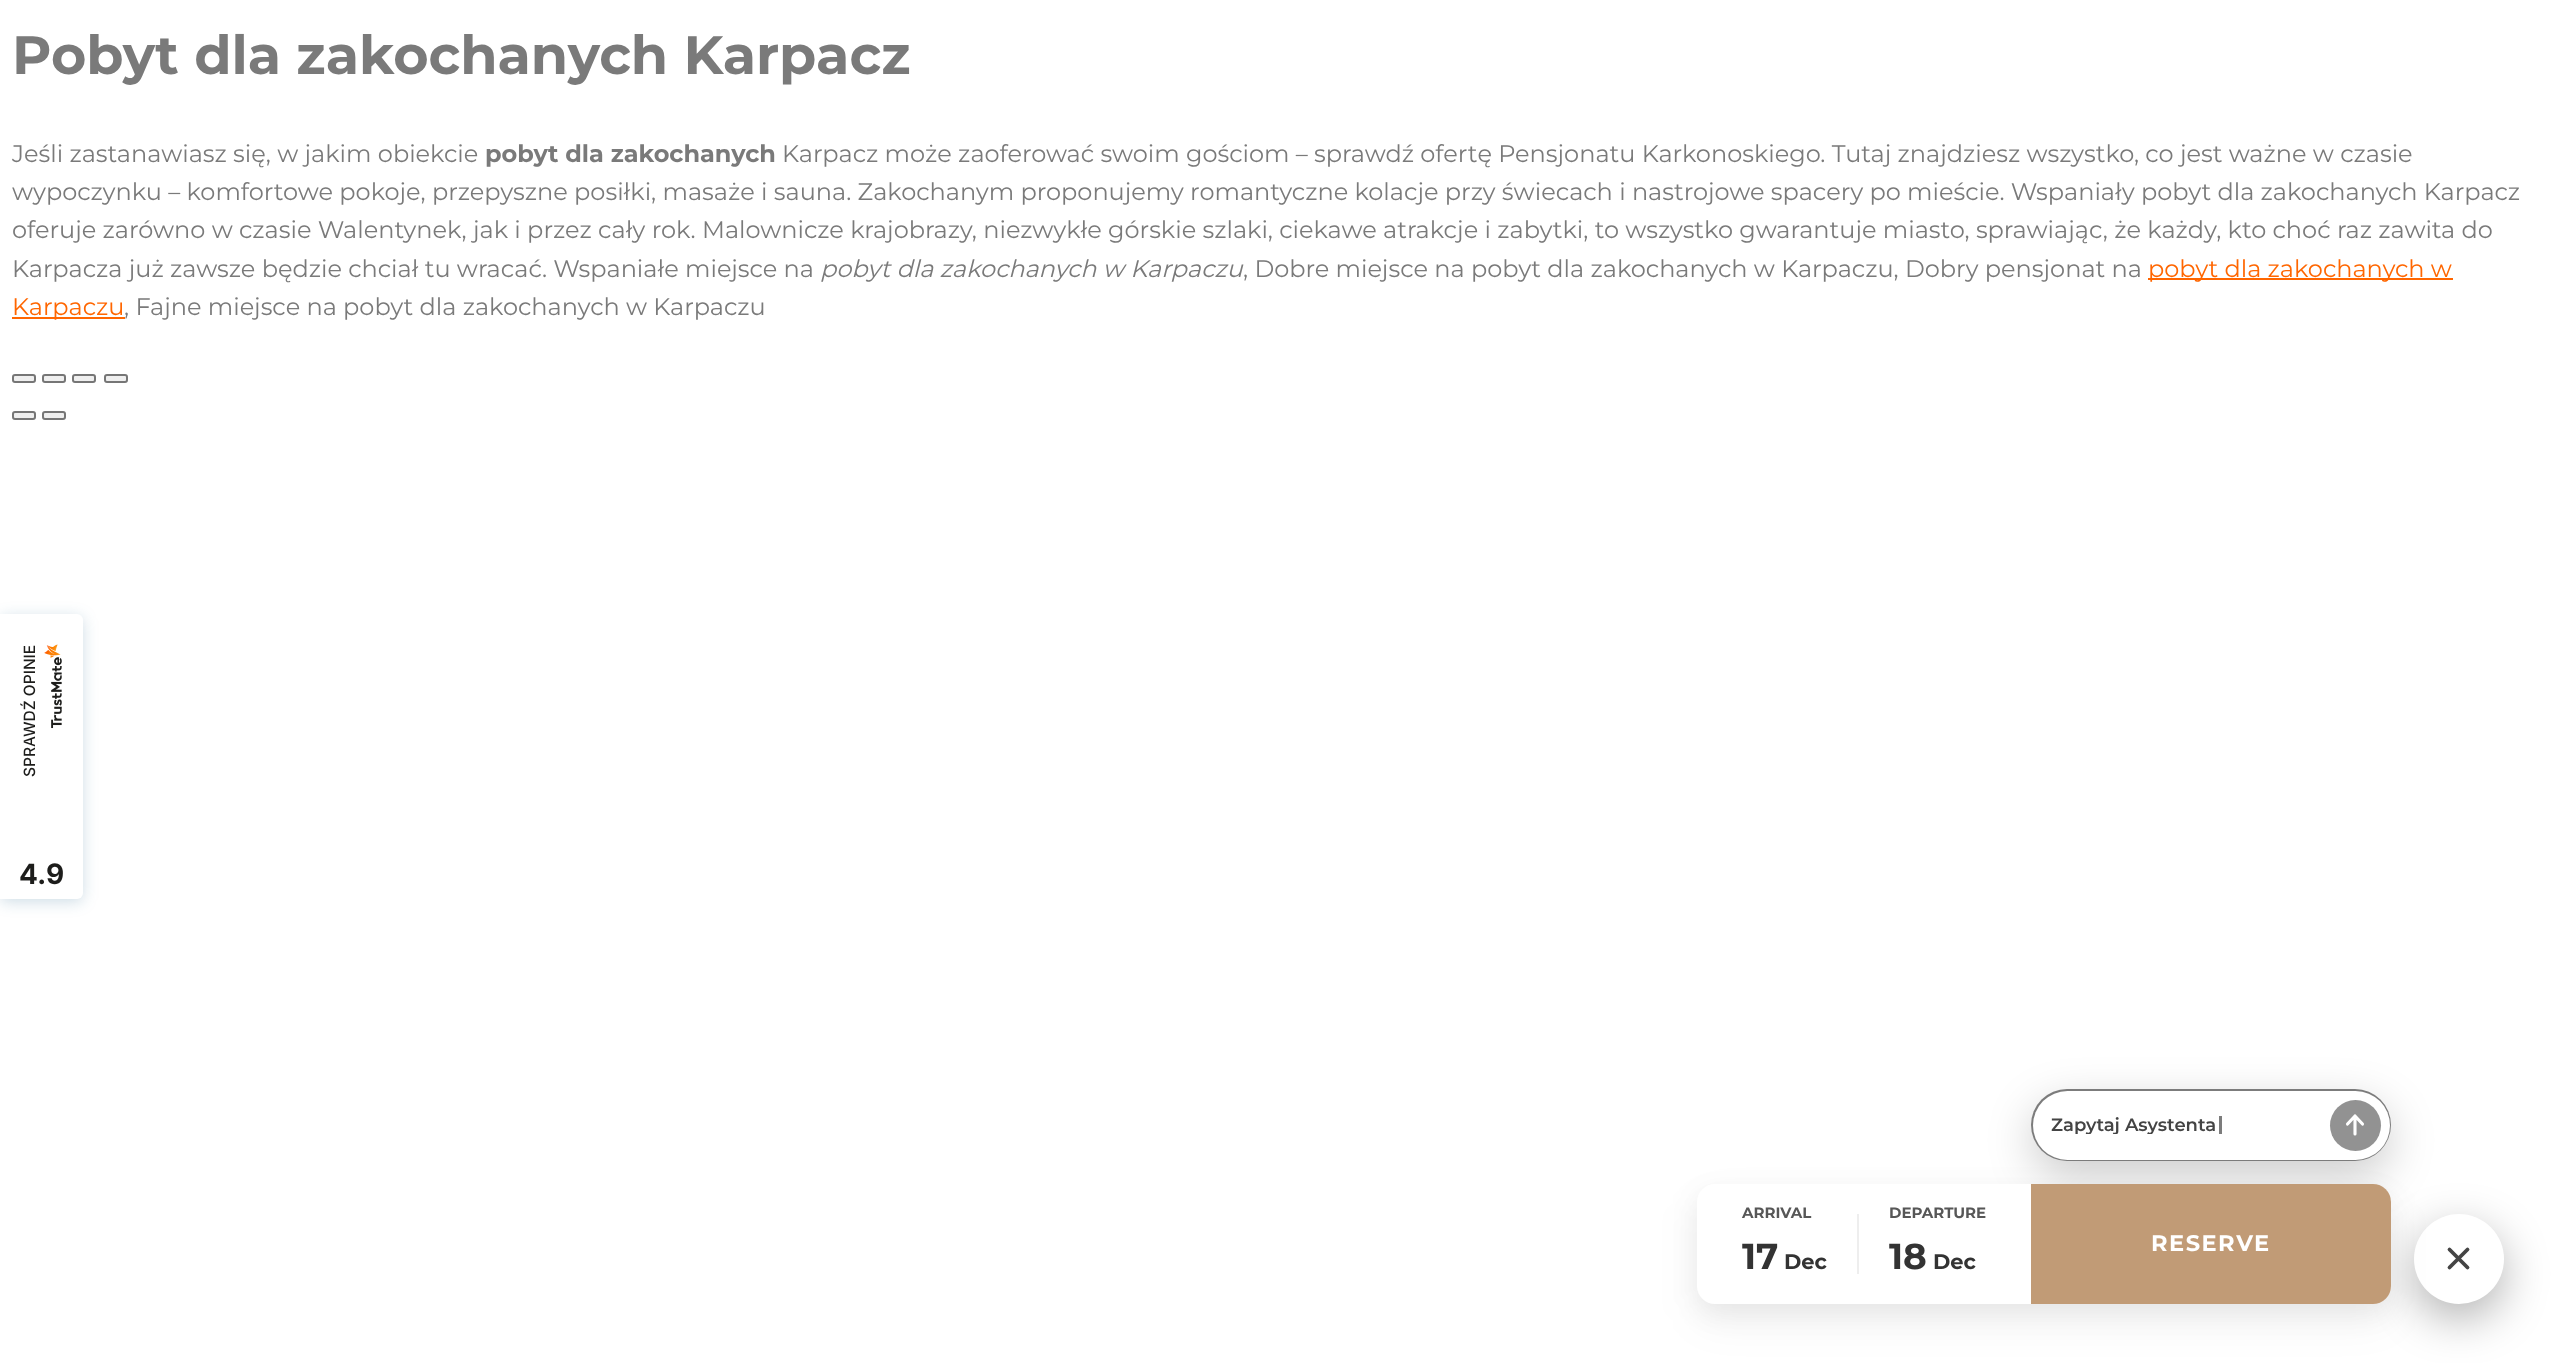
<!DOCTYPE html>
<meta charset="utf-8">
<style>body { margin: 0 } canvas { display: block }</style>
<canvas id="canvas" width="2563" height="1363"></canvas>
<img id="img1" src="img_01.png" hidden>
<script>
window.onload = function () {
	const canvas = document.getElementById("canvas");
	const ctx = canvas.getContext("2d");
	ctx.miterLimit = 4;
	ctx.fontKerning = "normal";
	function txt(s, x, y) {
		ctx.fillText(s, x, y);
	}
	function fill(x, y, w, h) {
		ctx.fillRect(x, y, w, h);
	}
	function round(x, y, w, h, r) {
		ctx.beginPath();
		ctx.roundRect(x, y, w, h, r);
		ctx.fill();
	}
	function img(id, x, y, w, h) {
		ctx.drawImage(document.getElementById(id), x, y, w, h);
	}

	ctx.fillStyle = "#FFFFFF";
	fill(0, 0, 2563, 1363);
	ctx.fillStyle = "#FF6600";
	fill(2148, 278, 305, 2);
	fill(12, 317, 113, 2);
	ctx.fillStyle = "#EFEFEF";
	ctx.beginPath();
	ctx.roundRect(13, 375, 22, 7, 2);
	ctx.fill();
	ctx.strokeStyle = "#767676";
	ctx.lineWidth = 2;
	ctx.stroke();
	ctx.beginPath();
	ctx.roundRect(43, 375, 22, 7, 2);
	ctx.fill();
	ctx.stroke();
	ctx.beginPath();
	ctx.roundRect(73, 375, 22, 7, 2);
	ctx.fill();
	ctx.stroke();
	ctx.beginPath();
	ctx.roundRect(105, 375, 22, 7, 2);
	ctx.fill();
	ctx.stroke();
	ctx.beginPath();
	ctx.roundRect(13, 412, 22, 7, 2);
	ctx.fill();
	ctx.stroke();
	ctx.beginPath();
	ctx.roundRect(43, 412, 22, 7, 2);
	ctx.fill();
	ctx.stroke();
	ctx.fillStyle = "rgba(11, 86, 128, 0.2)";
	ctx.filter = "blur(7.5px)";
	ctx.beginPath();
	ctx.roundRect(0, 617, 83, 285, 6);
	ctx.fill();
	ctx.filter = "none";
	ctx.fillStyle = "#FFFFFF";
	ctx.beginPath();
	ctx.roundRect(0, 614, 83, 285, [0, 6, 6, 0]);
	ctx.fill();
	img("img1", 44, 644, 18, 85);
	ctx.fillStyle = "rgba(0, 0, 0, 0.3)";
	ctx.filter = "blur(22.5px)";
	ctx.beginPath();
	ctx.roundRect(2414, 1229, 90, 90, 45);
	ctx.fill();
	ctx.filter = "none";
	ctx.fillStyle = "#FFFFFF";
	ctx.beginPath();
	ctx.arc(2459, 1259, 45, 0, Math.PI * 2);
	ctx.fill();
	ctx.fillStyle = "rgba(0, 0, 0, 0.2)";
	ctx.filter = "blur(22.5px)";
	ctx.beginPath();
	ctx.roundRect(2031, 1104, 360, 72, 36);
	ctx.fill();
	ctx.filter = "none";
	ctx.fillStyle = "#7C7C7C";
	round(2031, 1089, 360, 72, 36);
	ctx.fillStyle = "#FFFFFF";
	round(2033, 1091, 357, 69, 34.5);
	ctx.fillStyle = "#7C7C7C";
	fill(2219, 1116, 3, 18);
	ctx.fillStyle = "#929292";
	ctx.beginPath();
	ctx.arc(2355.5, 1125.5, 25.5, 0, Math.PI * 2);
	ctx.fill();
	ctx.beginPath();
	ctx.moveTo(2355, 1116);
	ctx.lineTo(2355, 1134);
	ctx.moveTo(2362.5, 1124);
	ctx.lineTo(2355, 1116);
	ctx.moveTo(2347.5, 1124);
	ctx.lineTo(2355, 1116);
	ctx.strokeStyle = "#FFFFFF";
	ctx.lineWidth = 3.1;
	ctx.lineCap = "round";
	ctx.lineJoin = "round";
	ctx.stroke();
	ctx.beginPath();
	ctx.moveTo(2467.5, 1249.5);
	ctx.lineTo(2449.5, 1267.5);
	ctx.moveTo(2449.5, 1249.5);
	ctx.lineTo(2467.5, 1267.5);
	ctx.strokeStyle = "#444444";
	ctx.lineWidth = 3.8;
	ctx.stroke();
	ctx.fillStyle = "rgba(0, 0, 0, 0.05)";
	ctx.filter = "blur(21px)";
	ctx.beginPath();
	ctx.roundRect(1697, 1202, 694, 120, 18);
	ctx.fill();
	ctx.filter = "none";
	ctx.fillStyle = "rgba(0, 0, 0, 0.06)";
	ctx.filter = "blur(13.5px)";
	ctx.beginPath();
	ctx.roundRect(1697, 1193, 694, 120, 18);
	ctx.fill();
	ctx.filter = "none";
	ctx.fillStyle = "#FFFFFF";
	round(1697, 1184, 694, 120, 18);
	ctx.fillStyle = "#EEEEEE";
	fill(1857, 1214, 2, 60);
	ctx.fillStyle = "#C19B76";
	ctx.beginPath();
	ctx.roundRect(2031, 1184, 360, 120, [0, 18, 18, 0]);
	ctx.fill();
	ctx.font = "bold 54px Montserrat";
	ctx.fillStyle = "#7A7A7A";
	txt("Pobyt dla zakochanych Karpacz", 12, 74);
	ctx.font = "24px Montserrat";
	txt("Jeśli zastanawiasz się, w jakim obiekcie", 12, 162);
	ctx.font = "bold 24px Montserrat";
	txt("pobyt dla zakochanych", 485, 162);
	ctx.font = "24px Montserrat";
	txt("Karpacz może zaoferować swoim gościom – sprawdź ofertę Pensjonatu Karkonoskiego. Tutaj znajdziesz wszystko, co jest ważne w czasie", 782, 162);
	txt("wypoczynku – komfortowe pokoje, przepyszne posiłki, masaże i sauna. Zakochanym proponujemy romantyczne kolacje przy świecach i nastrojowe spacery po mieście. Wspaniały pobyt dla zakochanych Karpacz", 12, 200);
	txt("oferuje zarówno w czasie Walentynek, jak i przez cały rok. Malownicze krajobrazy, niezwykłe górskie szlaki, ciekawe atrakcje i zabytki, to wszystko gwarantuje miasto, sprawiając, że każdy, kto choć raz zawita do", 12, 238);
	txt("Karpacza już zawsze będzie chciał tu wracać. Wspaniałe miejsce na", 12, 277);
	ctx.font = "italic 24px Montserrat";
	txt("pobyt dla zakochanych w Karpaczu", 820, 277);
	ctx.font = "24px Montserrat";
	txt(", Dobre miejsce na pobyt dla zakochanych w Karpaczu, Dobry pensjonat na", 1243, 277);
	ctx.fillStyle = "#FF6600";
	txt("pobyt dla zakochanych w", 2148, 277);
	txt("Karpaczu", 12, 315);
	ctx.fillStyle = "#7A7A7A";
	txt(", Fajne miejsce na pobyt dla zakochanych w Karpaczu", 124, 315);
	ctx.font = "500 15.5px Inter";
	ctx.fillStyle = "#1D1D1B";
	ctx.save();
	ctx.translate(35, 777);
	ctx.rotate(-90 * Math.PI / 180);
	ctx.fillText("SPRAWDŹ OPINIE", 0, 0);
	ctx.restore();
	ctx.font = "bold 28px Inter";
	txt("4.9", 19, 884);
	ctx.save();
	ctx.beginPath();
	ctx.rect(2051, 1116, 168, 18);
	ctx.clip();
	ctx.font = "600 18px Montserrat";
	ctx.fillStyle = "#444444";
	txt("Zapytaj Asystenta", 2051, 1131);
	ctx.restore();
	ctx.font = "bold 15px Montserrat";
	ctx.fillStyle = "#575757";
	txt("ARRIVAL", 1742, 1218);
	ctx.font = "bold 36px Montserrat";
	ctx.fillStyle = "#333333";
	txt("17", 1742, 1269);
	ctx.font = "bold 21px Montserrat";
	txt("Dec", 1784, 1269);
	ctx.font = "bold 15px Montserrat";
	ctx.fillStyle = "#575757";
	txt("DEPARTURE", 1889, 1218);
	ctx.font = "bold 36px Montserrat";
	ctx.fillStyle = "#333333";
	txt("18", 1889, 1269);
	ctx.font = "bold 21px Montserrat";
	txt("Dec", 1933, 1269);
	ctx.letterSpacing = "1.5px";
	ctx.font = "bold 22.5px Montserrat";
	ctx.fillStyle = "#FFFFFF";
	txt("RESERVE", 2151, 1251);
};
</script>
